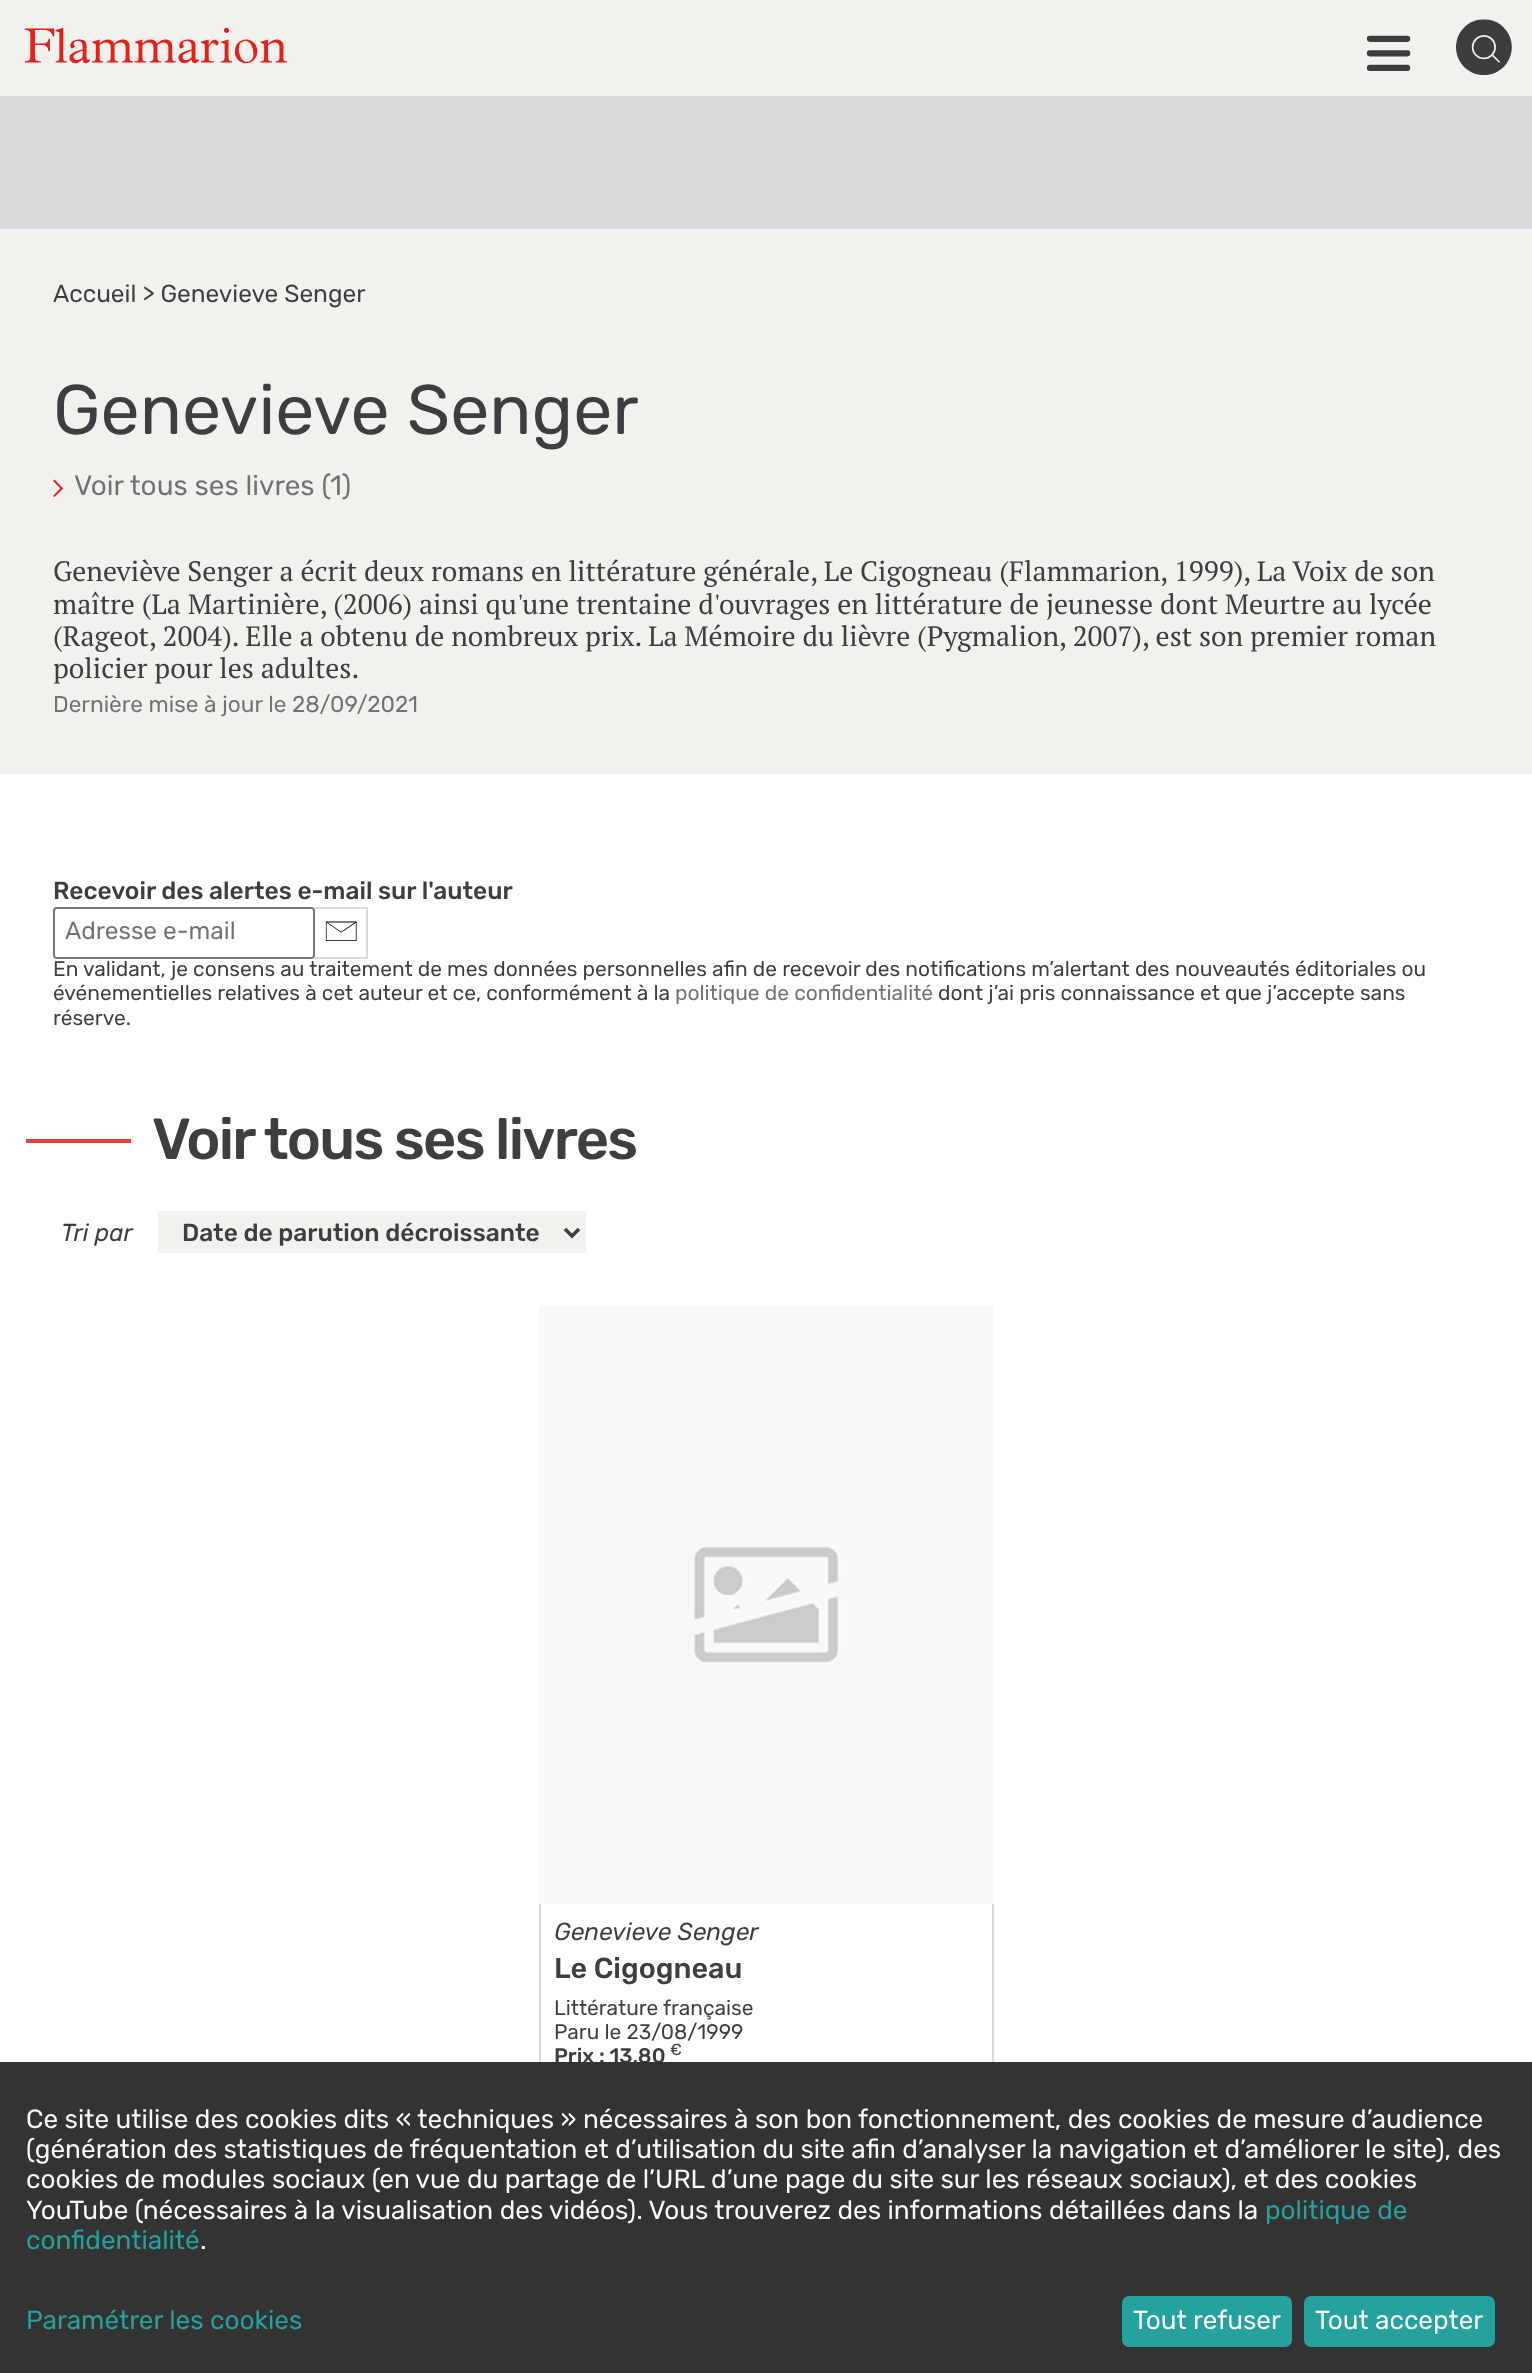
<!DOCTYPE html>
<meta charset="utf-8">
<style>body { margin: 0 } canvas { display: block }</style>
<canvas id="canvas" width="1532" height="2373"></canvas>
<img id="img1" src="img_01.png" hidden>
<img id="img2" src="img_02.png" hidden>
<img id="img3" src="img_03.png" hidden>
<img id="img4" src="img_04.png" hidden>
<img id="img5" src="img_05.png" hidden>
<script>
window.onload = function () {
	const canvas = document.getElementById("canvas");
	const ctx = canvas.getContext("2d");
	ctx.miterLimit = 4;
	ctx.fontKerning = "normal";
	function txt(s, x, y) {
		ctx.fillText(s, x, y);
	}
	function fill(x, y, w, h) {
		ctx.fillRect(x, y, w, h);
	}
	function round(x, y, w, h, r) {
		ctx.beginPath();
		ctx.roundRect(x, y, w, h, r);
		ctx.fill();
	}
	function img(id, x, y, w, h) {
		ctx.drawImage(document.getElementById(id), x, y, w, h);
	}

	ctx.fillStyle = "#F3F1EE";
	fill(0, 0, 1532, 2373);
	img("img1", 24, 27, 263, 37);
	img("img2", 1366, 35, 45, 36);
	img("img3", 1456, 19, 56, 56);
	ctx.fillStyle = "#D9DADB";
	fill(0, 96, 1532, 133);
	ctx.fillStyle = "#E32119";
	ctx.beginPath();
	ctx.moveTo(53, 481);
	ctx.lineTo(54.5, 479.5);
	ctx.lineTo(63, 488.5);
	ctx.lineTo(61.5, 489.5);
	ctx.closePath();
	ctx.fill();
	ctx.beginPath();
	ctx.moveTo(53, 496);
	ctx.lineTo(61.5, 487);
	ctx.lineTo(63, 488.5);
	ctx.lineTo(54.5, 497);
	ctx.closePath();
	ctx.fill();
	ctx.fillStyle = "#FFFFFF";
	fill(0, 774, 1532, 1288);
	ctx.beginPath();
	ctx.roundRect(54, 908, 260, 50, 3);
	ctx.strokeStyle = "#767676";
	ctx.lineWidth = 2;
	ctx.stroke();
	ctx.fillStyle = "#D9DADB";
	fill(315, 907, 53, 2);
	fill(366, 907, 2, 52);
	fill(315, 957, 53, 2);
	img("img4", 325, 921, 32, 20);
	ctx.fillStyle = "#ED403C";
	fill(26, 1139, 105, 4);
	ctx.fillStyle = "#F3F1EE";
	fill(158, 1211, 428, 42);
	ctx.beginPath();
	ctx.moveTo(565, 1229);
	ctx.lineTo(572, 1236);
	ctx.lineTo(579, 1229);
	ctx.strokeStyle = "#3E3D40";
	ctx.lineWidth = 3.5;
	ctx.stroke();
	img("img5", 539, 1305, 455, 599);
	ctx.fillStyle = "#D9DADB";
	fill(992, 1904, 2, 158);
	fill(539, 1904, 2, 158);
	ctx.font = "24.5px Rubik";
	ctx.fillStyle = "#3E3D40";
	txt("Accueil > Genevieve Senger", 53, 302);
	ctx.font = "70px Rubik";
	txt("Genevieve Senger", 53, 434);
	ctx.font = "28px Rubik";
	ctx.fillStyle = "#707173";
	txt("Voir tous ses livres (1)", 74, 495);
	ctx.font = "28px PT Serif";
	ctx.fillStyle = "#3E3D40";
	txt("Geneviève Senger a écrit deux romans en littérature générale, Le Cigogneau (Flammarion, 1999), La Voix de son", 53, 581);
	txt("maître (La Martinière, (2006) ainsi qu'une trentaine d'ouvrages en littérature de jeunesse dont Meurtre au lycée", 53, 614);
	txt("(Rageot, 2004). Elle a obtenu de nombreux prix. La Mémoire du lièvre (Pygmalion, 2007), est son premier roman", 53, 646);
	txt("policier pour les adultes.", 53, 678);
	ctx.font = "22.75px Rubik";
	ctx.fillStyle = "#707173";
	txt("Dernière mise à jour le 28/09/2021", 53, 712);
	ctx.font = "500 24.5px Rubik";
	ctx.fillStyle = "#3E3D40";
	txt("Recevoir des alertes e-mail sur l'auteur", 53, 899);
	ctx.font = "24.5px Rubik";
	ctx.fillStyle = "#707173";
	txt("Adresse e-mail", 65, 939);
	ctx.font = "21px Rubik";
	ctx.fillStyle = "#3E3D40";
	txt("En validant, je consens au traitement de mes données personnelles afin de recevoir des notifications m’alertant des nouveautés éditoriales ou", 53, 976);
	txt("événementielles relatives à cet auteur et ce, conformément à la", 53, 1000);
	ctx.fillStyle = "#707173";
	txt("politique de confidentialité", 675, 1000);
	ctx.fillStyle = "#3E3D40";
	txt("dont j’ai pris connaissance et que j’accepte sans", 938, 1000);
	txt("réserve.", 53, 1025);
	ctx.letterSpacing = "-1.75px";
	ctx.font = "500 57.75px Rubik";
	txt("Voir tous ses livres", 152, 1159);
	ctx.letterSpacing = "0px";
	ctx.font = "italic 24.5px Rubik";
	txt("Tri par", 61, 1241);
	ctx.font = "500 24.5px Rubik";
	txt("Date de parution décroissante", 182, 1241);
	ctx.font = "italic 24.5px Rubik";
	txt("Genevieve Senger", 554, 1940);
	ctx.font = "500 28.75px Rubik";
	txt("Le Cigogneau", 554, 1978);
	ctx.font = "21px Rubik";
	txt("Littérature française", 554, 2015);
	txt("Paru le 23/08/1999", 554, 2039);
	ctx.font = "500 21px Rubik";
	txt("Prix : 13,80", 554, 2063);
	ctx.font = "16px Rubik";
	txt("€", 670, 2055);
	ctx.fillStyle = "#333333";
	fill(0, 2062, 1532, 311);
	ctx.font = "26.25px Rubik";
	ctx.fillStyle = "#FAFAFA";
	txt("Ce site utilise des cookies dits « techniques » nécessaires à son bon fonctionnement, des cookies de mesure d’audience", 26, 2128);
	txt("(génération des statistiques de fréquentation et d’utilisation du site afin d’analyser la navigation et d’améliorer le site), des", 26, 2158);
	txt("cookies de modules sociaux (en vue du partage de l’URL d’une page du site sur les réseaux sociaux), et des cookies", 26, 2188);
	txt("YouTube (nécessaires à la visualisation des vidéos). Vous trouverez des informations détaillées dans la", 26, 2219);
	ctx.fillStyle = "#25A29E";
	txt("politique de", 1265, 2219);
	txt("confidentialité", 26, 2249);
	ctx.fillStyle = "#FAFAFA";
	txt(".", 200, 2249);
	ctx.fillStyle = "#25A29E";
	txt("Paramétrer les cookies", 26, 2329);
	round(1122, 2296, 170, 51, 7);
	ctx.fillStyle = "#FAFAFA";
	txt("Tout refuser", 1133, 2329);
	ctx.fillStyle = "#25A29E";
	round(1304, 2296, 191, 51, 7);
	ctx.fillStyle = "#FAFAFA";
	txt("Tout accepter", 1315, 2329);
};
</script>
